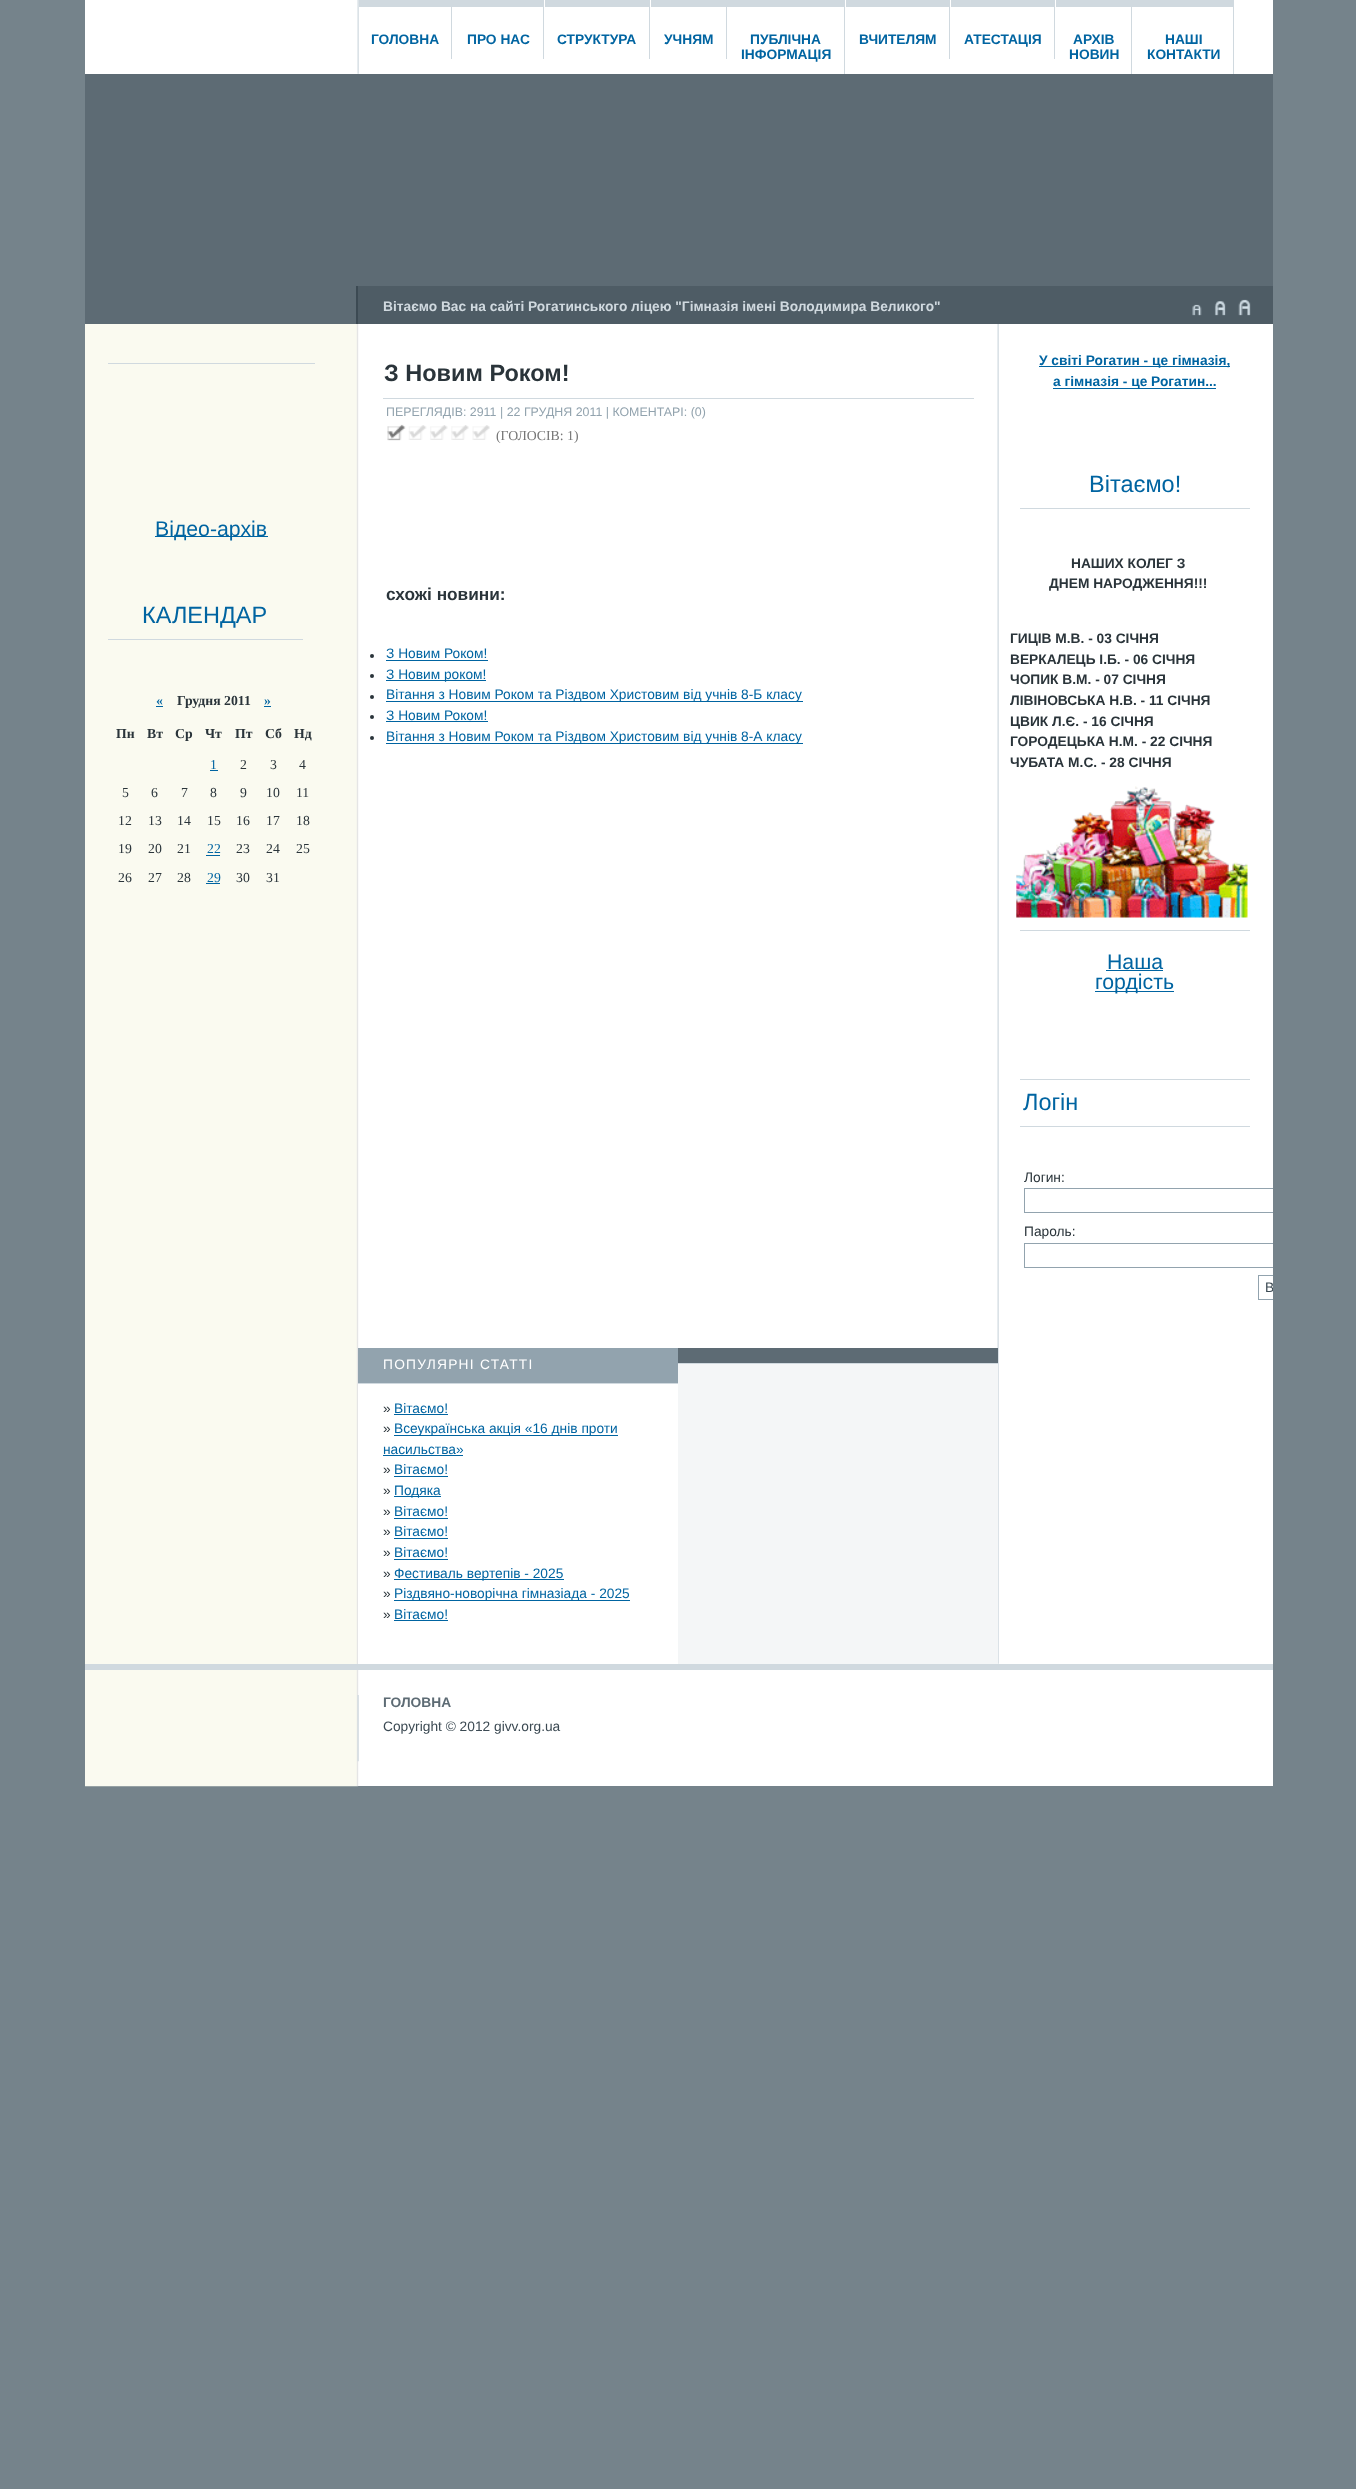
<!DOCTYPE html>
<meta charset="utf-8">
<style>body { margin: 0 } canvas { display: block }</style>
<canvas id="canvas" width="1356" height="2489"></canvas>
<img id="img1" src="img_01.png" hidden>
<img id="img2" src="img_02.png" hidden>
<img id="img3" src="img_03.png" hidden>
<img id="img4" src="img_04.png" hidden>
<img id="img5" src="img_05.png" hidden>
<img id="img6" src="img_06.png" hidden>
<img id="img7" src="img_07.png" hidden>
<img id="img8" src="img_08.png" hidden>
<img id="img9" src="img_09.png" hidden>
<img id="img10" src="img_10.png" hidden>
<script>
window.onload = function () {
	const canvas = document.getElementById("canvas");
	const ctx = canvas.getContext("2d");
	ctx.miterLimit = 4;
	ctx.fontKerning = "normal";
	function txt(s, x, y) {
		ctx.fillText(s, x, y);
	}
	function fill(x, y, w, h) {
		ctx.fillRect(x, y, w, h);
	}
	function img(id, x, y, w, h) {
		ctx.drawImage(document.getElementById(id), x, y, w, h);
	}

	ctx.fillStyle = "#75838B";
	fill(0, 0, 1356, 2489);
	ctx.fillStyle = "#FFFFFF";
	fill(85, 0, 1188, 1786);
	img("img1", 357, 0, 2, 74);
	ctx.fillStyle = "#D0D9DF";
	fill(359, 0, 185, 7);
	fill(451, 0, 1, 59);
	fill(543, 0, 1, 59);
	fill(545, 0, 105, 7);
	fill(649, 0, 1, 59);
	fill(651, 0, 194, 7);
	fill(726, 0, 1, 59);
	fill(844, 0, 1, 74);
	fill(846, 0, 104, 7);
	fill(949, 0, 1, 59);
	fill(951, 0, 104, 7);
	fill(1054, 0, 1, 59);
	fill(1056, 0, 178, 7);
	fill(1131, 0, 1, 74);
	fill(1233, 0, 1, 74);
	ctx.fillStyle = "#5D6B74";
	fill(356, 74, 917, 212);
	fill(85, 74, 271, 250);
	ctx.fillStyle = "#4E5C65";
	fill(358, 286, 915, 38);
	ctx.fillStyle = "#3C4A53";
	fill(356, 286, 2, 38);
	img("img2", 1192, 304, 10, 12);
	img("img3", 1214, 301, 12, 15);
	img("img4", 1238, 299, 13, 17);
	img("img5", 85, 324, 274, 1463);
	img("img6", 997, 324, 2, 1340);
	ctx.fillStyle = "#D0D9DF";
	fill(108, 363, 207, 1);
	ctx.fillStyle = "#0064A1";
	fill(155, 536, 113, 1);
	ctx.fillStyle = "#D0D9DF";
	fill(108, 639, 195, 1);
	ctx.fillStyle = "#0064A1";
	fill(156, 706, 7, 1);
	fill(264, 706, 7, 1);
	fill(210, 770, 8, 1);
	fill(206, 855, 14, 1);
	fill(206, 883, 14, 1);
	ctx.fillStyle = "#D0D9DF";
	fill(383, 398, 591, 1);
	img("img7", 387, 425, 103, 15);
	img("img8", 387, 424, 19, 17);
	ctx.fillStyle = "#2A343A";
	ctx.beginPath();
	ctx.arc(372, 656, 2, 0, Math.PI * 2);
	ctx.fill();
	ctx.fillStyle = "#0064A1";
	fill(386, 660, 102, 1);
	ctx.fillStyle = "#2A343A";
	ctx.beginPath();
	ctx.arc(372, 676, 2, 0, Math.PI * 2);
	ctx.fill();
	ctx.fillStyle = "#0064A1";
	fill(386, 680, 100, 1);
	ctx.fillStyle = "#2A343A";
	ctx.beginPath();
	ctx.arc(372, 697, 2, 0, Math.PI * 2);
	ctx.fill();
	ctx.fillStyle = "#0064A1";
	fill(386, 701, 417, 1);
	ctx.fillStyle = "#2A343A";
	ctx.beginPath();
	ctx.arc(372, 717, 2, 0, Math.PI * 2);
	ctx.fill();
	ctx.fillStyle = "#0064A1";
	fill(386, 721, 102, 1);
	ctx.fillStyle = "#2A343A";
	ctx.beginPath();
	ctx.arc(372, 738, 2, 0, Math.PI * 2);
	ctx.fill();
	ctx.fillStyle = "#0064A1";
	fill(386, 743, 417, 1);
	fill(1039, 366, 191, 1);
	fill(1053, 388, 163, 1);
	ctx.fillStyle = "#D0D9DF";
	fill(1020, 508, 230, 1);
	img("img9", 1016, 786, 232, 132);
	fill(1020, 930, 230, 1);
	ctx.fillStyle = "#0064A1";
	fill(1106, 970, 57, 1);
	fill(1095, 991, 79, 1);
	ctx.fillStyle = "#D0D9DF";
	fill(1020, 1079, 230, 1);
	fill(1020, 1126, 230, 1);
	ctx.save();
	ctx.beginPath();
	ctx.rect(998, 349, 275, 999);
	ctx.clip();
	ctx.strokeStyle = "#92A3AE";
	ctx.strokeRect(1024.5, 1188.5, 280, 24);
	ctx.strokeRect(1024.5, 1243.5, 280, 24);
	ctx.strokeRect(1258.5, 1275.5, 46, 24);
	ctx.restore();
	ctx.fillStyle = "#FFFFFF";
	fill(358, 1384, 1, 280);
	ctx.fillStyle = "#92A3AE";
	fill(358, 1348, 320, 35);
	ctx.fillStyle = "#D0D9DF";
	fill(358, 1383, 320, 1);
	ctx.fillStyle = "#0064A1";
	fill(394, 1414, 54, 1);
	fill(394, 1435, 224, 1);
	fill(383, 1455, 80, 1);
	fill(394, 1476, 54, 1);
	fill(394, 1496, 47, 1);
	fill(394, 1518, 54, 1);
	fill(394, 1538, 54, 1);
	fill(394, 1559, 54, 1);
	fill(394, 1579, 170, 1);
	fill(394, 1600, 236, 1);
	fill(394, 1620, 54, 1);
	ctx.fillStyle = "#F4F6F7";
	fill(678, 1364, 320, 300);
	ctx.fillStyle = "#5D6B74";
	fill(678, 1348, 320, 15);
	ctx.fillStyle = "#D0D9DF";
	fill(678, 1363, 320, 1);
	fill(85, 1664, 1188, 6);
	img("img10", 357, 1695, 2, 67);
	ctx.font = "bold 13.75px Liberation Sans";
	ctx.fillStyle = "#0064A1";
	txt("ГОЛОВНА", 371, 44);
	txt("ПРО НАС", 467, 44);
	txt("СТРУКТУРА", 557, 44);
	txt("УЧНЯМ", 664, 44);
	txt("ПУБЛІЧНА", 750, 44);
	txt("ІНФОРМАЦІЯ", 741, 59);
	txt("ВЧИТЕЛЯМ", 859, 44);
	txt("АТЕСТАЦІЯ", 964, 44);
	txt("АРХІВ", 1073, 44);
	txt("НОВИН", 1069, 59);
	txt("НАШІ", 1165, 44);
	txt("КОНТАКТИ", 1147, 59);
	ctx.fillStyle = "#D0D9DF";
	txt("Вітаємо Вас на сайті Рогатинського ліцею \"Гімназія імені Володимира Великого\"", 383, 311);
	ctx.font = "21.25px Liberation Sans";
	ctx.fillStyle = "#0064A1";
	txt("Відео-архів", 155, 536);
	ctx.font = "23.5px Liberation Sans";
	txt("КАЛЕНДАР", 142, 623);
	ctx.font = "bold 13.75px Liberation Serif";
	txt("«", 156, 705);
	ctx.fillStyle = "#2A343A";
	txt("Грудня 2011", 177, 705);
	ctx.fillStyle = "#0064A1";
	txt("»", 264, 705);
	ctx.fillStyle = "#2A343A";
	txt("Пн", 116, 738);
	txt("Вт", 147, 738);
	txt("Ср", 175, 738);
	txt("Чт", 205, 738);
	txt("Пт", 235, 738);
	txt("Сб", 265, 738);
	txt("Нд", 294, 738);
	ctx.font = "13.75px Liberation Serif";
	ctx.fillStyle = "#0064A1";
	txt("1", 210, 769);
	ctx.fillStyle = "#2A343A";
	txt("2", 240, 769);
	txt("3", 270, 769);
	txt("4", 299, 769);
	txt("5", 122, 797);
	txt("6", 151, 797);
	txt("7", 181, 797);
	txt("8", 210, 797);
	txt("9", 240, 797);
	txt("10", 266, 797);
	txt("11", 296, 797);
	txt("12", 118, 825);
	txt("13", 148, 825);
	txt("14", 177, 825);
	txt("15", 207, 825);
	txt("16", 236, 825);
	txt("17", 266, 825);
	txt("18", 296, 825);
	txt("19", 118, 853);
	txt("20", 148, 853);
	txt("21", 177, 853);
	ctx.fillStyle = "#0064A1";
	txt("22", 207, 853);
	ctx.fillStyle = "#2A343A";
	txt("23", 236, 853);
	txt("24", 266, 853);
	txt("25", 296, 853);
	txt("26", 118, 882);
	txt("27", 148, 882);
	txt("28", 177, 882);
	ctx.fillStyle = "#0064A1";
	txt("29", 207, 882);
	ctx.fillStyle = "#2A343A";
	txt("30", 236, 882);
	txt("31", 266, 882);
	ctx.font = "bold 23.5px Liberation Sans";
	txt("З Новим Роком!", 384, 381);
	ctx.font = "12.4px Liberation Sans";
	ctx.fillStyle = "#92A3AE";
	txt("ПЕРЕГЛЯДІВ: 2911", 386, 416);
	txt("| 22 ГРУДНЯ 2011 | КОМЕНТАРІ: (0)", 500, 416);
	ctx.font = "13.75px Liberation Serif";
	ctx.fillStyle = "#757575";
	txt("(ГОЛОСІВ: 1)", 496, 440);
	ctx.font = "bold 17.25px Liberation Sans";
	ctx.fillStyle = "#2A343A";
	txt("схожі новини:", 386, 600);
	ctx.font = "13.75px Liberation Sans";
	ctx.fillStyle = "#0064A1";
	txt("З Новим Роком!", 386, 658);
	txt("З Новим роком!", 386, 679);
	txt("Вітання з Новим Роком та Різдвом Христовим від учнів 8-Б класу", 386, 699);
	txt("З Новим Роком!", 386, 720);
	txt("Вітання з Новим Роком та Різдвом Христовим від учнів 8-А класу", 386, 741);
	ctx.font = "bold 13.75px Liberation Sans";
	txt("У світі Рогатин - це гімназія,", 1039, 365);
	txt("а гімназія - це Рогатин...", 1053, 386);
	ctx.font = "23.5px Liberation Sans";
	txt("Вітаємо!", 1089, 492);
	ctx.font = "bold 13.75px Liberation Sans";
	ctx.fillStyle = "#2A343A";
	txt("НАШИХ КОЛЕГ З", 1071, 568);
	txt("ДНЕМ НАРОДЖЕННЯ!!!", 1049, 588);
	txt("ГИЦІВ М.В. - 03 СІЧНЯ", 1010, 643);
	txt("ВЕРКАЛЕЦЬ І.Б. - 06 СІЧНЯ", 1010, 664);
	txt("ЧОПИК В.М. - 07 СІЧНЯ", 1010, 684);
	txt("ЛІВІНОВСЬКА Н.В. - 11 СІЧНЯ", 1010, 705);
	txt("ЦВИК Л.Є. - 16 СІЧНЯ", 1010, 726);
	txt("ГОРОДЕЦЬКА Н.М. - 22 СІЧНЯ", 1010, 746);
	txt("ЧУБАТА М.С. - 28 СІЧНЯ", 1010, 767);
	ctx.font = "21.25px Liberation Sans";
	ctx.fillStyle = "#0064A1";
	txt("Наша", 1107, 969);
	txt("гордість", 1095, 989);
	ctx.font = "23.5px Liberation Sans";
	txt("Логін", 1023, 1110);
	ctx.font = "13.75px Liberation Sans";
	ctx.fillStyle = "#2A343A";
	txt("Логин:", 1024, 1182);
	txt("Пароль:", 1024, 1236);
	ctx.save();
	ctx.beginPath();
	ctx.rect(1259, 1276, 14, 23);
	ctx.clip();
	ctx.fillStyle = "#3C4A53";
	txt("В", 1265, 1292);
	ctx.restore();
	ctx.letterSpacing = "1.25px";
	ctx.fillStyle = "#FFFFFF";
	txt("ПОПУЛЯРНІ СТАТТІ", 383, 1369);
	ctx.letterSpacing = "0px";
	ctx.fillStyle = "#2A343A";
	txt("»", 383, 1413);
	ctx.fillStyle = "#0064A1";
	txt("Вітаємо!", 394, 1413);
	ctx.fillStyle = "#2A343A";
	txt("»", 383, 1433);
	ctx.fillStyle = "#0064A1";
	txt("Всеукраїнська акція «16 днів проти", 394, 1433);
	txt("насильства»", 383, 1454);
	ctx.fillStyle = "#2A343A";
	txt("»", 383, 1474);
	ctx.fillStyle = "#0064A1";
	txt("Вітаємо!", 394, 1474);
	ctx.fillStyle = "#2A343A";
	txt("»", 383, 1495);
	ctx.fillStyle = "#0064A1";
	txt("Подяка", 394, 1495);
	ctx.fillStyle = "#2A343A";
	txt("»", 383, 1516);
	ctx.fillStyle = "#0064A1";
	txt("Вітаємо!", 394, 1516);
	ctx.fillStyle = "#2A343A";
	txt("»", 383, 1536);
	ctx.fillStyle = "#0064A1";
	txt("Вітаємо!", 394, 1536);
	ctx.fillStyle = "#2A343A";
	txt("»", 383, 1557);
	ctx.fillStyle = "#0064A1";
	txt("Вітаємо!", 394, 1557);
	ctx.fillStyle = "#2A343A";
	txt("»", 383, 1578);
	ctx.fillStyle = "#0064A1";
	txt("Фестиваль вертепів - 2025", 394, 1578);
	ctx.fillStyle = "#2A343A";
	txt("»", 383, 1598);
	ctx.fillStyle = "#0064A1";
	txt("Різдвяно-новорічна гімназіада - 2025", 394, 1598);
	ctx.fillStyle = "#2A343A";
	txt("»", 383, 1619);
	ctx.fillStyle = "#0064A1";
	txt("Вітаємо!", 394, 1619);
	ctx.font = "bold 13.75px Liberation Sans";
	ctx.fillStyle = "#5D6B74";
	txt("ГОЛОВНА", 383, 1707);
	ctx.font = "13.75px Liberation Sans";
	ctx.fillStyle = "#3C4A53";
	txt("Copyright © 2012 givv.org.ua", 383, 1731);
};
</script>
